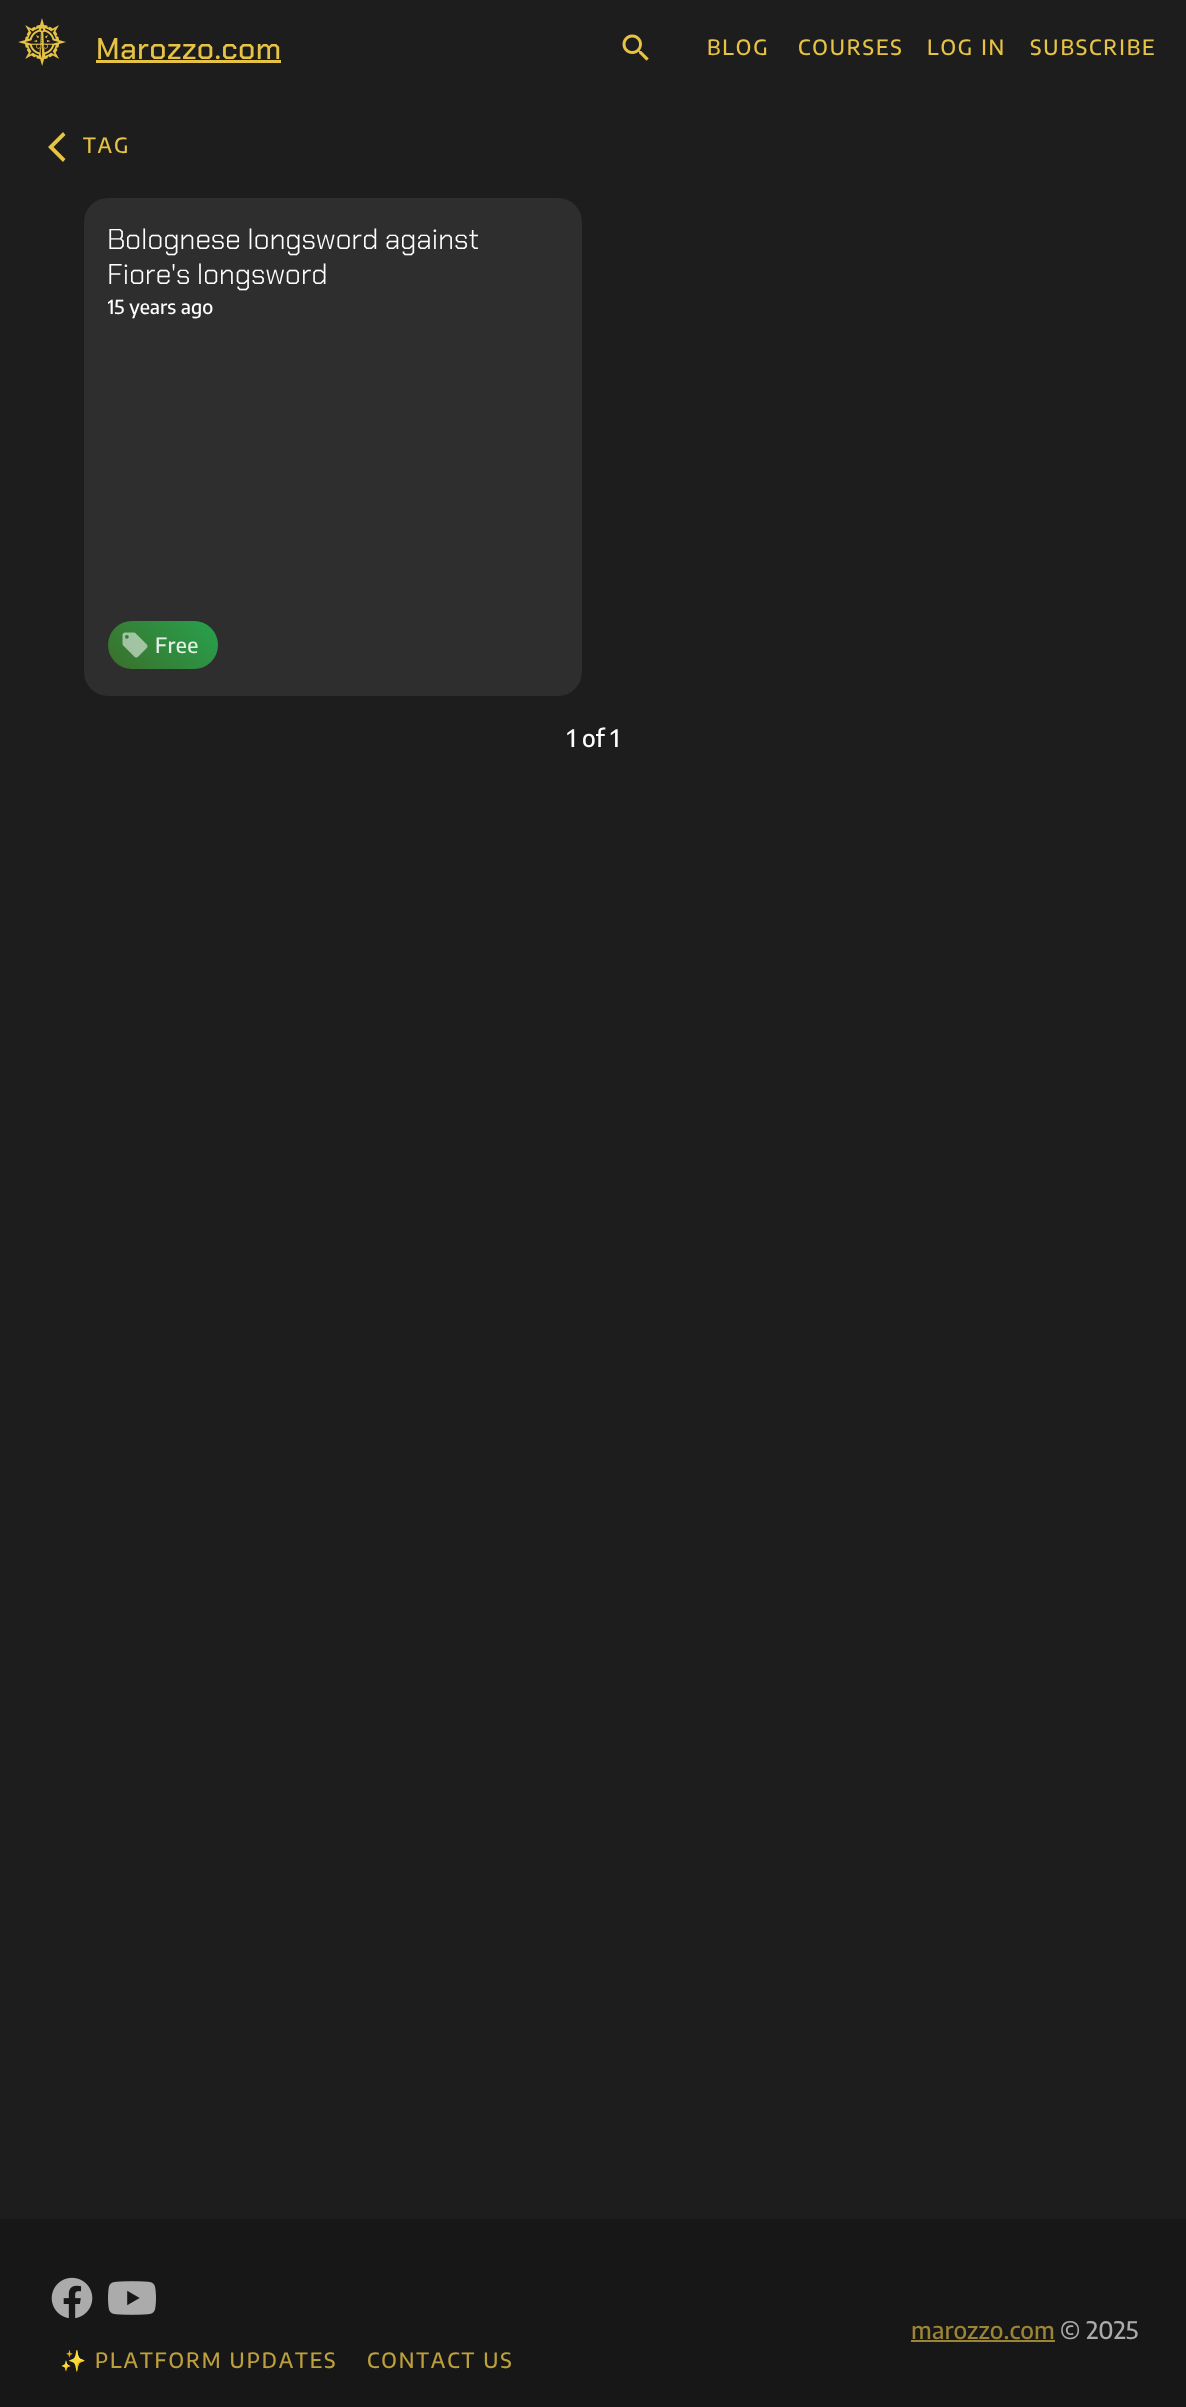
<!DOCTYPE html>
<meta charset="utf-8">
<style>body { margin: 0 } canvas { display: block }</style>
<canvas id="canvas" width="1186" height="2407"></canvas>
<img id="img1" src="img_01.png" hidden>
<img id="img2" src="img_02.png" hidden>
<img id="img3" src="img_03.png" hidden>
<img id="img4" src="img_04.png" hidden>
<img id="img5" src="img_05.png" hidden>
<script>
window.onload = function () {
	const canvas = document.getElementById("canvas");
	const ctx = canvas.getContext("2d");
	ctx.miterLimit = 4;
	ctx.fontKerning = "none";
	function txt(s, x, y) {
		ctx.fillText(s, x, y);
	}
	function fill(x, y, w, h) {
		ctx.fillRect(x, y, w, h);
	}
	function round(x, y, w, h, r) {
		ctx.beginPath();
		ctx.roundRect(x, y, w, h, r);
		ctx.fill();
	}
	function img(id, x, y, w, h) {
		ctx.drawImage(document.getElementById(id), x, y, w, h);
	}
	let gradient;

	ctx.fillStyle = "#1D1D1D";
	fill(0, 0, 1186, 2407);
	img("img1", 18, 18, 48, 48);
	ctx.fillStyle = "#E6C245";
	fill(96, 60, 185, 3);
	img("img2", 622, 34, 27, 27);
	ctx.beginPath();
	ctx.moveTo(65.5, 135);
	ctx.lineTo(53.5, 147);
	ctx.lineTo(65.5, 159);
	ctx.lineTo(63, 162);
	ctx.lineTo(48, 147);
	ctx.lineTo(63, 132);
	ctx.closePath();
	ctx.fill();
	ctx.fillStyle = "#2E2E2E";
	round(84, 198, 498, 498, 24);
	gradient = ctx.createLinearGradient(123, 684, 202, 606);
	gradient.addColorStop(0, "#3B6F2B");
	gradient.addColorStop(1, "#27A24D");
	ctx.fillStyle = gradient;
	round(108, 621, 110, 48, 24);
	img("img3", 122, 632, 26, 26);
	ctx.fillStyle = "#171717";
	fill(0, 2219, 1186, 188);
	ctx.fillStyle = "#9B8434";
	fill(911, 2340, 144, 2);
	img("img4", 51, 2277, 42, 42);
	img("img5", 108, 2281, 48, 34);
	ctx.letterSpacing = "0.4px";
	ctx.font = "500 30px Chakra Petch";
	ctx.fillStyle = "#E6C245";
	txt("Marozzo.com", 96, 59);
	ctx.letterSpacing = "1.9px";
	ctx.font = "100 21px Encode Sans Condensed";
	txt("BLOG", 707, 55);
	txt("COURSES", 798, 55);
	txt("LOG IN", 927, 55);
	txt("SUBSCRIBE", 1030, 55);
	txt("TAG", 83, 153);
	ctx.letterSpacing = "-0.25px";
	ctx.font = "300 28.75px Chakra Petch";
	ctx.fillStyle = "#FFFFFF";
	txt("Bolognese longsword against", 107, 249);
	txt("Fiore's longsword", 107, 284);
	ctx.save();
	ctx.beginPath();
	ctx.rect(108, 291, 450, 32);
	ctx.clip();
	ctx.letterSpacing = "0px";
	ctx.font = "100 19.25px Encode Sans Condensed";
	txt("15 years ago", 107, 314);
	ctx.restore();
	ctx.letterSpacing = "0.4px";
	ctx.font = "100 21px Encode Sans Condensed";
	ctx.fillStyle = "#E4F0E6";
	txt("Free", 155, 653);
	ctx.letterSpacing = "0px";
	ctx.font = "100 24px Encode Sans Condensed";
	ctx.fillStyle = "#FFFFFF";
	txt("1 of 1", 567, 747);
	ctx.fillStyle = "#9B8434";
	txt("marozzo.com", 911, 2339);
	ctx.fillStyle = "#ABABAB";
	txt("© 2025", 1060, 2339);
	ctx.letterSpacing = "1.9px";
	ctx.font = "21px Noto Color Emoji";
	ctx.fillStyle = "#BDA03C";
	txt("✨", 60, 2368);
	ctx.font = "100 21px Encode Sans Condensed";
	txt("PLATFORM UPDATES", 95, 2368);
	txt("CONTACT US", 367, 2368);
};
</script>
